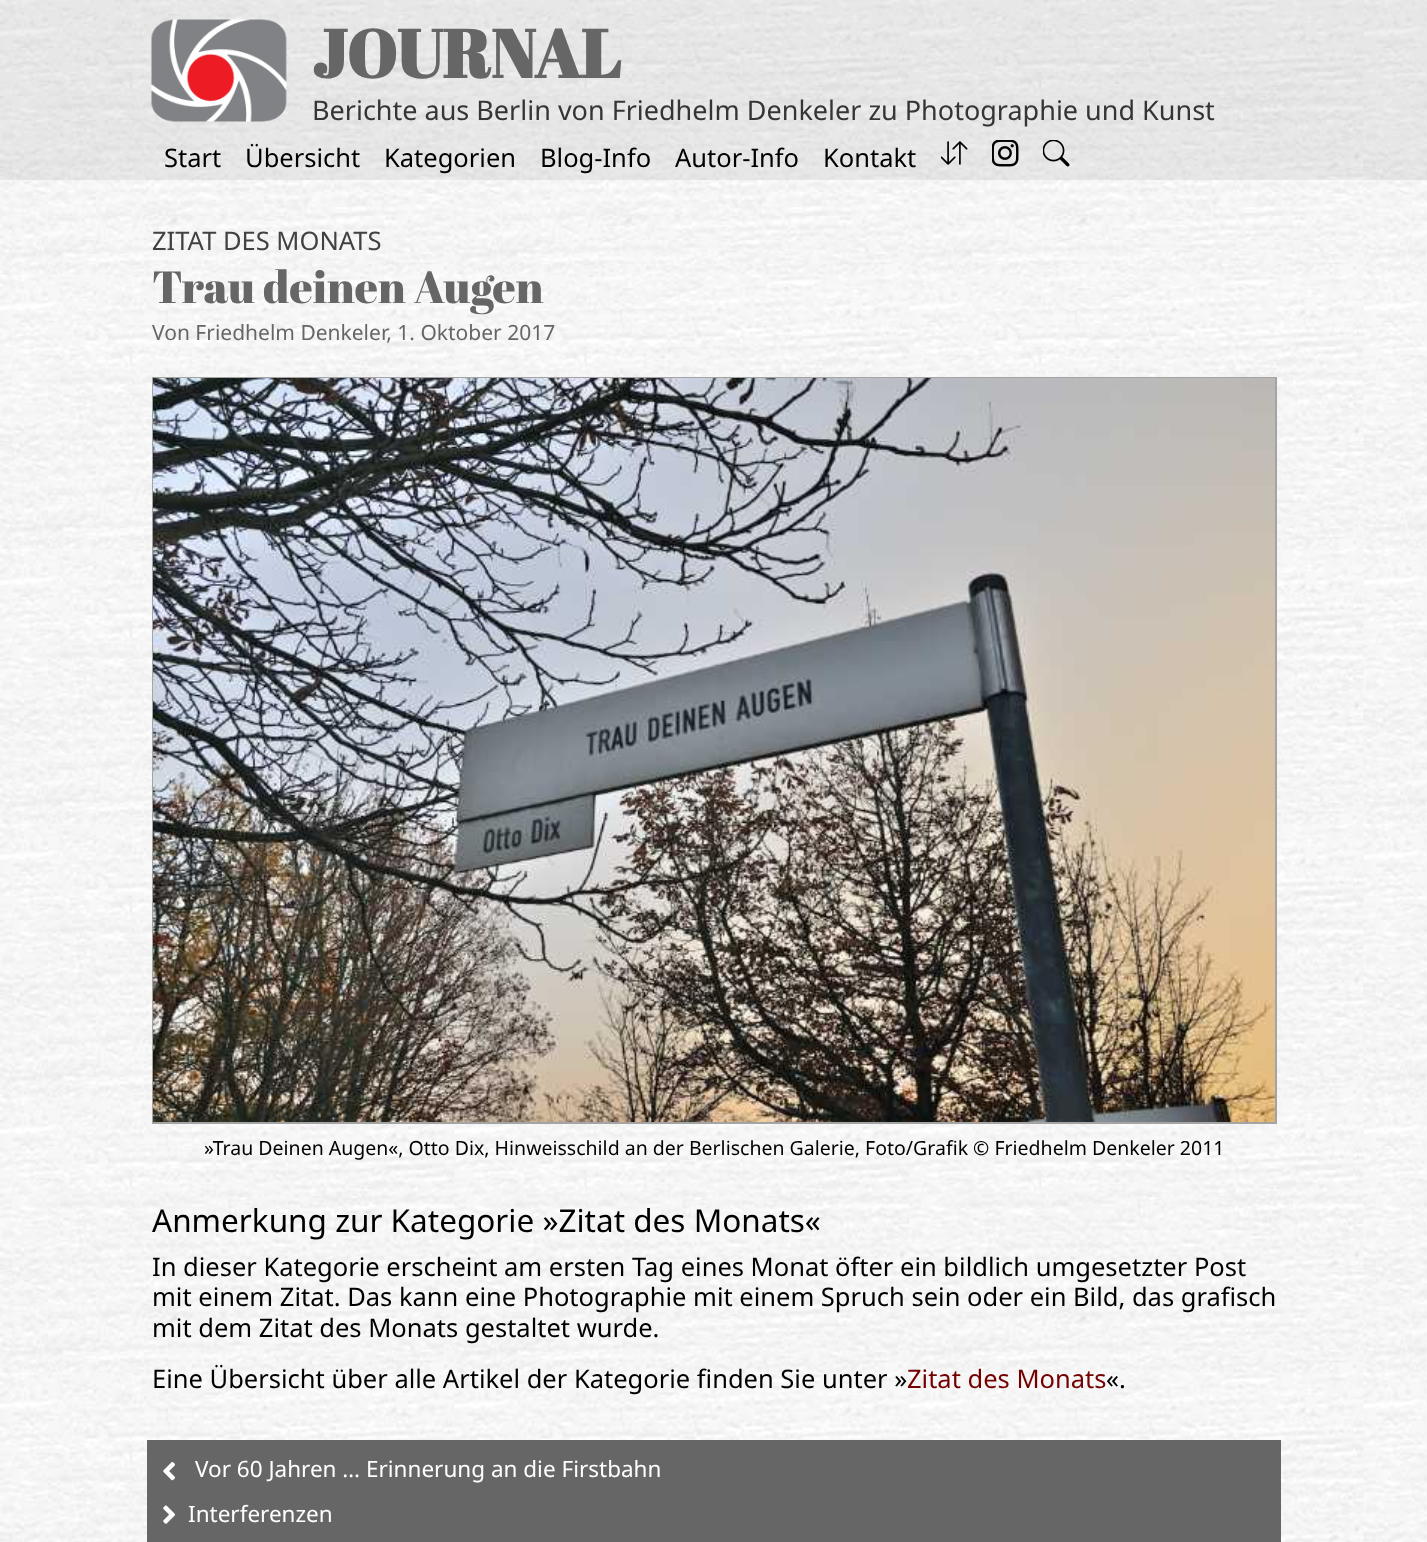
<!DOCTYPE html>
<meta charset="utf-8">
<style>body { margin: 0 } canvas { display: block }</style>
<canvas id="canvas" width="1427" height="1542"></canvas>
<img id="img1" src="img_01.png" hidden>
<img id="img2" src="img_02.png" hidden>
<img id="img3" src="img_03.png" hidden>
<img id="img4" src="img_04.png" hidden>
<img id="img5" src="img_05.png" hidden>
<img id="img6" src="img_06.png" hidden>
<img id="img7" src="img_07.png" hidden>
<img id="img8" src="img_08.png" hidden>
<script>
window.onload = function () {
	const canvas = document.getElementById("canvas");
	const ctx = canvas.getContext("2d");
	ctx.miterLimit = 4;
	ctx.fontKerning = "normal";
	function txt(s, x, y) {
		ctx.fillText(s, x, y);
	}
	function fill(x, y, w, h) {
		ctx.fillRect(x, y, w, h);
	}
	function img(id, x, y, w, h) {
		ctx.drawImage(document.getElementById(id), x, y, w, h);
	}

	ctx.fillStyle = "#FFFFFF";
	fill(0, 0, 1427, 1542);
	img("img1", 0, 0, 1427, 1542);
	ctx.fillStyle = "rgba(102, 102, 102, 0.1)";
	fill(0, 0, 1427, 135);
	img("img2", 151, 19, 136, 103);
	fill(0, 135, 1427, 45);
	img("img3", 941, 141, 27, 24);
	img("img4", 992, 140, 27, 27);
	img("img5", 1043, 140, 27, 27);
	ctx.strokeStyle = "#A4A4A4";
	ctx.lineWidth = 2;
	ctx.strokeRect(153, 378, 1123, 745);
	img("img6", 153, 378, 1122, 744);
	ctx.fillStyle = "#666666";
	fill(147, 1440, 1134, 102);
	img("img7", 163, 1462, 12, 19);
	img("img8", 163, 1505, 12, 19);
	ctx.font = "bold 67.5px Abril Fatface";
	txt("JOURNAL", 312, 78);
	ctx.font = "27px Noto Sans";
	ctx.fillStyle = "#353535";
	txt("Berichte aus Berlin von Friedhelm Denkeler zu Photographie und Kunst", 312, 120);
	ctx.font = "25.5px Noto Sans";
	ctx.fillStyle = "#000000";
	txt("Start", 164, 167);
	txt("Übersicht", 245, 167);
	txt("Kategorien", 384, 167);
	txt("Blog-Info", 540, 167);
	txt("Autor-Info", 675, 167);
	txt("Kontakt", 823, 167);
	ctx.fillStyle = "#404141";
	txt("ZITAT DES MONATS", 152, 250);
	ctx.font = "45px Abril Fatface";
	ctx.fillStyle = "#666666";
	txt("Trau deinen Augen", 152, 303);
	ctx.font = "21px Noto Sans";
	txt("Von Friedhelm Denkeler, 1. Oktober 2017", 152, 340);
	ctx.font = "19.5px Noto Sans";
	ctx.fillStyle = "#000000";
	txt("»Trau Deinen Augen«, Otto Dix, Hinweisschild an der Berlischen Galerie, Foto/Grafik © Friedhelm Denkeler 2011", 204, 1155);
	ctx.font = "31.5px Noto Sans";
	txt("Anmerkung zur Kategorie »Zitat des Monats«", 152, 1232);
	ctx.font = "25.5px Noto Sans";
	txt("In dieser Kategorie erscheint am ersten Tag eines Monat öfter ein bildlich umgesetzter Post", 152, 1276);
	txt("mit einem Zitat. Das kann eine Photographie mit einem Spruch sein oder ein Bild, das grafisch", 152, 1306);
	txt("mit dem Zitat des Monats gestaltet wurde.", 152, 1337);
	txt("Eine Übersicht über alle Artikel der Kategorie finden Sie unter »", 152, 1388);
	ctx.fillStyle = "#750000";
	txt("Zitat des Monats", 907, 1388);
	ctx.fillStyle = "#000000";
	txt("«.", 1106, 1388);
	ctx.font = "22.5px Noto Sans";
	ctx.fillStyle = "#FFFFFF";
	txt("Vor 60 Jahren … Erinnerung an die Firstbahn", 195, 1477);
	txt("Interferenzen", 188, 1522);
};
</script>
